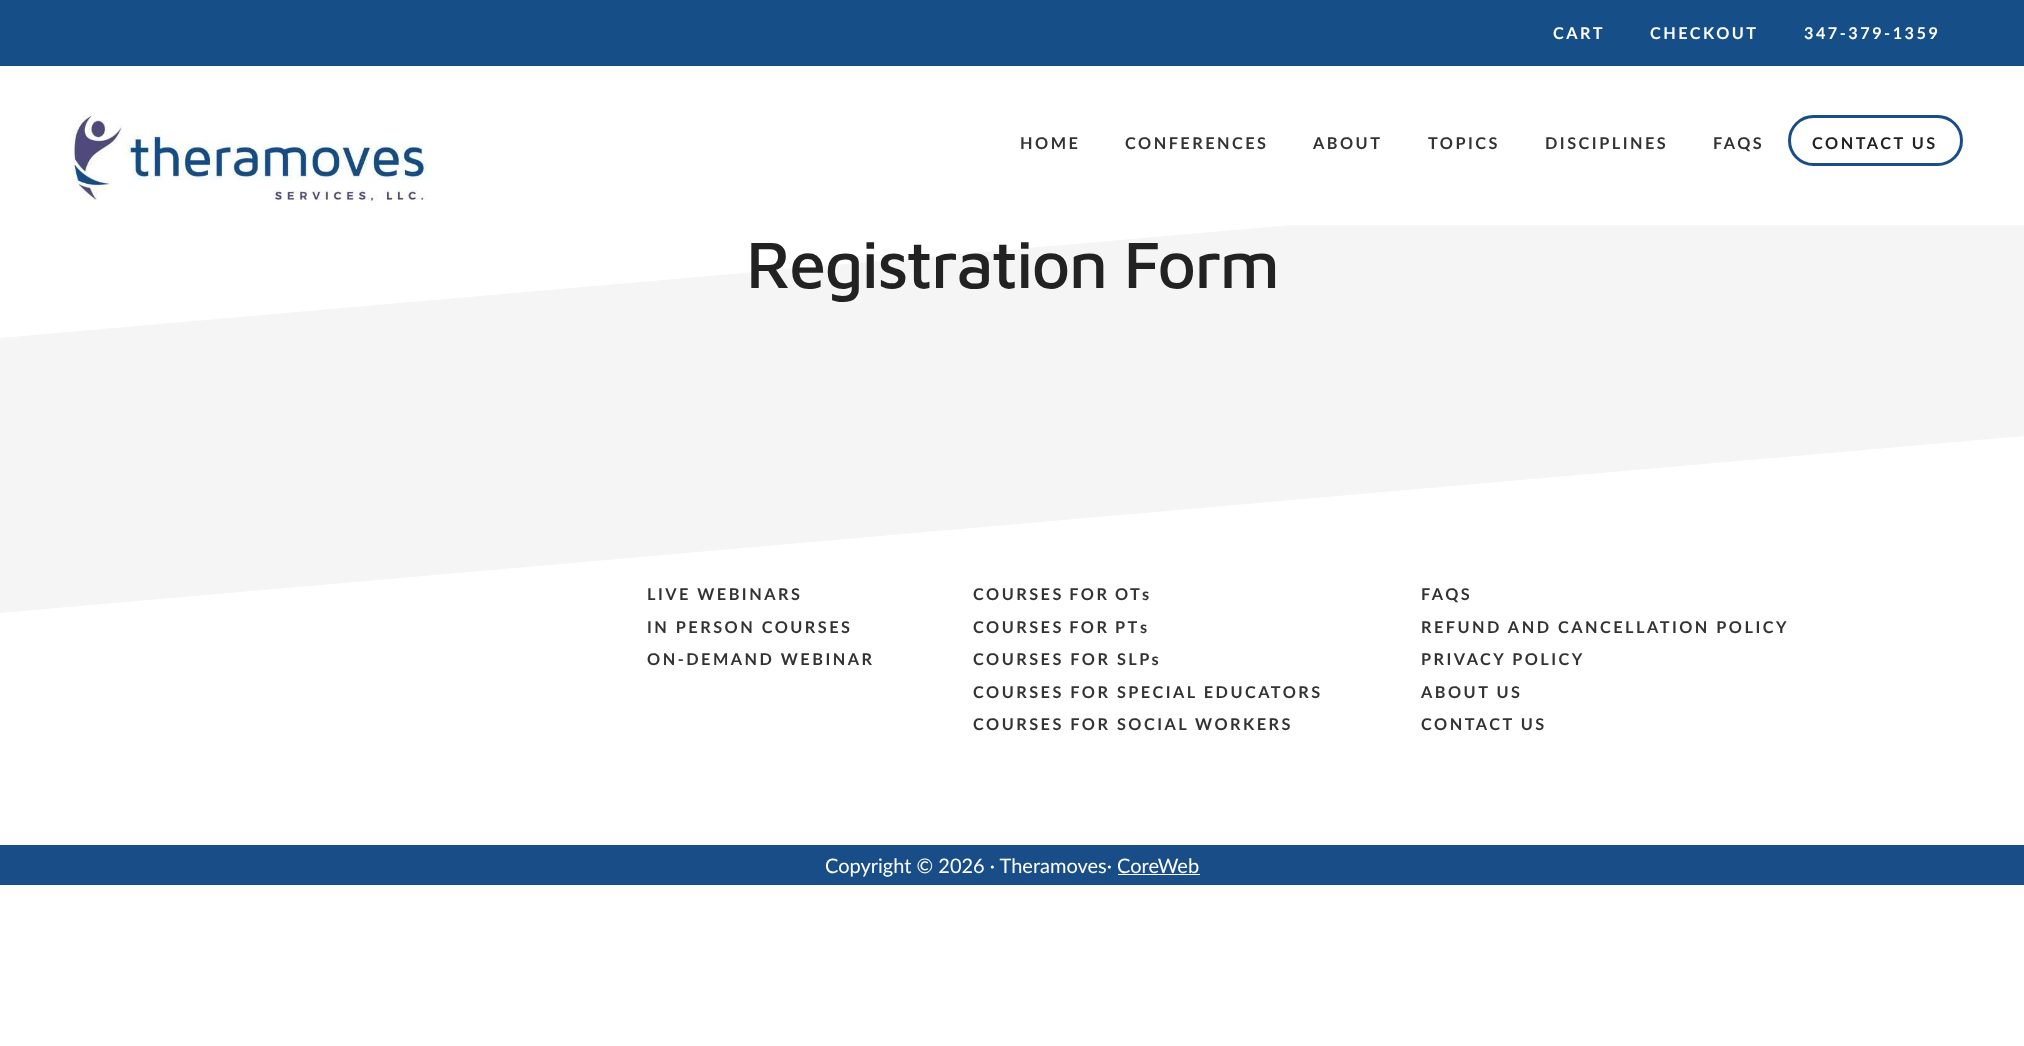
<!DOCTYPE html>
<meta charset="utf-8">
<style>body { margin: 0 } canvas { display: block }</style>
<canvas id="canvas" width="2024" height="1046"></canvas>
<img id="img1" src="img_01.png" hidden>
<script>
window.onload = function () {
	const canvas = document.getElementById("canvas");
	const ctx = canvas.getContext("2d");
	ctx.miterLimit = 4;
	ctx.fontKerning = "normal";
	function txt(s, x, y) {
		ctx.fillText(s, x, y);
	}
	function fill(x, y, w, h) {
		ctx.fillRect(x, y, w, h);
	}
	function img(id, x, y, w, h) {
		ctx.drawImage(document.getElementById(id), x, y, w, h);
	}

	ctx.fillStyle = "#FFFFFF";
	fill(0, 0, 2024, 1046);
	ctx.fillStyle = "#164E87";
	fill(0, 0, 2024, 66);
	ctx.fillStyle = "#F5F5F5";
	ctx.beginPath();
	ctx.moveTo(0, 464);
	ctx.lineTo(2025, 286);
	ctx.lineTo(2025, 436);
	ctx.lineTo(0, 613);
	ctx.closePath();
	ctx.fill();
	ctx.beginPath();
	ctx.moveTo(0, 338);
	ctx.lineTo(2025, 161);
	ctx.lineTo(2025, 311);
	ctx.lineTo(0, 488);
	ctx.closePath();
	ctx.fill();
	ctx.fillStyle = "#FFFFFF";
	fill(1296, 161, 728, 64);
	img("img1", 72, 110, 360, 93);
	ctx.beginPath();
	ctx.roundRect(1789.5, 116.5, 172, 48, 24);
	ctx.strokeStyle = "#194D87";
	ctx.lineWidth = 3;
	ctx.stroke();
	ctx.fillStyle = "#194D87";
	fill(0, 845, 2024, 40);
	ctx.fillStyle = "#FFFFFF";
	fill(1118, 874, 82, 1);
	ctx.letterSpacing = "2.5px";
	ctx.font = "bold 16.25px Lato";
	txt("CART", 1553, 39);
	txt("CHECKOUT", 1650, 39);
	txt("347-379-1359", 1804, 39);
	ctx.fillStyle = "#333333";
	txt("HOME", 1020, 149);
	txt("CONFERENCES", 1125, 149);
	txt("ABOUT", 1313, 149);
	txt("TOPICS", 1428, 149);
	txt("DISCIPLINES", 1545, 149);
	txt("FAQS", 1713, 149);
	ctx.fillStyle = "#222222";
	txt("CONTACT US", 1812, 149);
	ctx.letterSpacing = "-1.9px";
	ctx.font = "500 67.5px Maven Pro";
	txt("Registration Form", 746, 288);
	ctx.letterSpacing = "2.5px";
	ctx.font = "bold 16.25px Lato";
	ctx.fillStyle = "#333333";
	txt("LIVE WEBINARS", 647, 600);
	txt("IN PERSON COURSES", 647, 633);
	txt("ON-DEMAND WEBINAR", 647, 665);
	ctx.wordSpacing = "-1px";
	txt("COURSES FOR OT", 973, 600);
	ctx.wordSpacing = "0px";
	txt("s", 1142, 600);
	ctx.wordSpacing = "-1px";
	txt("COURSES FOR PT", 973, 633);
	ctx.wordSpacing = "0px";
	txt("s", 1140, 633);
	txt("COURSES FOR SLPs", 973, 665);
	txt("COURSES FOR SPECIAL EDUCATORS", 973, 698);
	txt("COURSES FOR SOCIAL WORKERS", 973, 730);
	txt("FAQS", 1421, 600);
	txt("REFUND AND CANCELLATION POLICY", 1421, 633);
	txt("PRIVACY POLICY", 1421, 665);
	txt("ABOUT US", 1421, 698);
	txt("CONTACT US", 1421, 730);
	ctx.letterSpacing = "0px";
	ctx.font = "20px Lato";
	ctx.fillStyle = "#FFFFFF";
	txt("Copyright © 2026 · Theramoves· CoreWeb", 825, 873);
};
</script>
